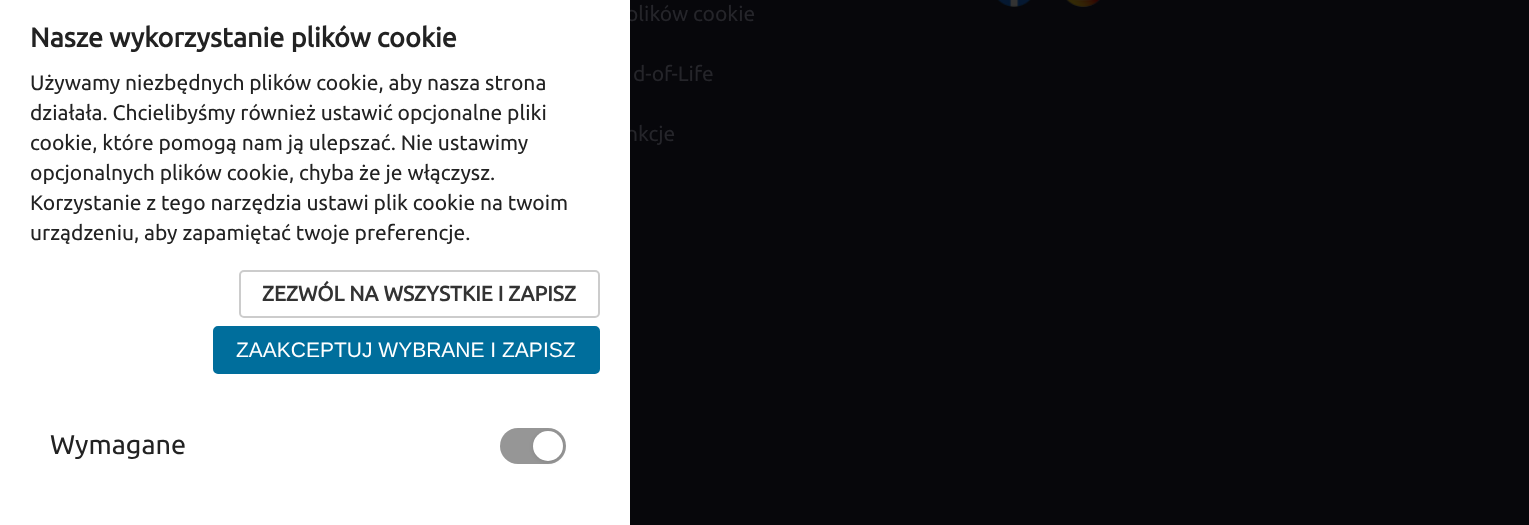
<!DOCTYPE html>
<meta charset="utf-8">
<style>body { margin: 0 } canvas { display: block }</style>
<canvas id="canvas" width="1529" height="525"></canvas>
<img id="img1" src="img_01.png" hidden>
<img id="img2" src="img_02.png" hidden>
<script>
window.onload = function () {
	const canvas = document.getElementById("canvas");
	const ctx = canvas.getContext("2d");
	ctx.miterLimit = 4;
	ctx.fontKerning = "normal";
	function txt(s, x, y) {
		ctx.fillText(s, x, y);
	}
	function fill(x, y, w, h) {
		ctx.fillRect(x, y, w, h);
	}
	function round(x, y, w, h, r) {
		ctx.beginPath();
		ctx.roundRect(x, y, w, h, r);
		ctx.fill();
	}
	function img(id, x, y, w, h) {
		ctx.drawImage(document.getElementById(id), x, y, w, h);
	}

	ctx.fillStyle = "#07070B";
	fill(0, 0, 1529, 525);
	img("img1", 997, 0, 34, 7);
	img("img2", 1066, 0, 34, 7);
	ctx.font = "21px Ubuntu";
	ctx.fillStyle = "#25252A";
	txt("plików cookie", 626, 21);
	txt("d-of-Life", 633, 81);
	txt("nkcje", 626, 141);
	ctx.fillStyle = "#FFFFFF";
	fill(0, 0, 630, 525);
	ctx.fillStyle = "#969696";
	round(500, 428, 66, 36, 18);
	ctx.fillStyle = "rgba(0, 0, 0, 0.1)";
	ctx.filter = "blur(2px)";
	ctx.beginPath();
	ctx.roundRect(533, 432, 30, 30, 15);
	ctx.fill();
	ctx.filter = "none";
	ctx.fillStyle = "#FFFFFF";
	ctx.beginPath();
	ctx.arc(548, 446, 15, 0, Math.PI * 2);
	ctx.fill();
	ctx.font = "27px Ubuntu";
	ctx.fillStyle = "#222222";
	txt("Wymagane", 50, 454);
	ctx.fillStyle = "#006E9C";
	ctx.beginPath();
	ctx.roundRect(214, 327, 385, 46, 4);
	ctx.fill();
	ctx.strokeStyle = "#006E9C";
	ctx.lineWidth = 2;
	ctx.stroke();
	ctx.font = "21px Liberation Sans";
	ctx.fillStyle = "#FFFFFF";
	txt("ZAAKCEPTUJ WYBRANE I ZAPISZ", 236, 357);
	ctx.beginPath();
	ctx.roundRect(240, 271, 359, 46, 4);
	ctx.strokeStyle = "#CCCCCC";
	ctx.stroke();
	ctx.font = "bold 21px Ubuntu";
	ctx.fillStyle = "#333333";
	txt("ZEZWÓL NA WSZYSTKIE I ZAPISZ", 262, 301);
	ctx.font = "21px Ubuntu";
	ctx.fillStyle = "#222222";
	txt("urządzeniu, aby zapamiętać twoje preferencje.", 30, 240);
	txt("Korzystanie z tego narzędzia ustawi plik cookie na twoim", 30, 210);
	txt("opcjonalnych plików cookie, chyba że je włączysz.", 30, 180);
	txt("cookie, które pomogą nam ją ulepszać. Nie ustawimy", 30, 150);
	txt("działała. Chcielibyśmy również ustawić opcjonalne pliki", 30, 120);
	txt("Używamy niezbędnych plików cookie, aby nasza strona", 30, 90);
	ctx.font = "bold 27px Ubuntu";
	txt("Nasze wykorzystanie plików cookie", 30, 47);
};
</script>
